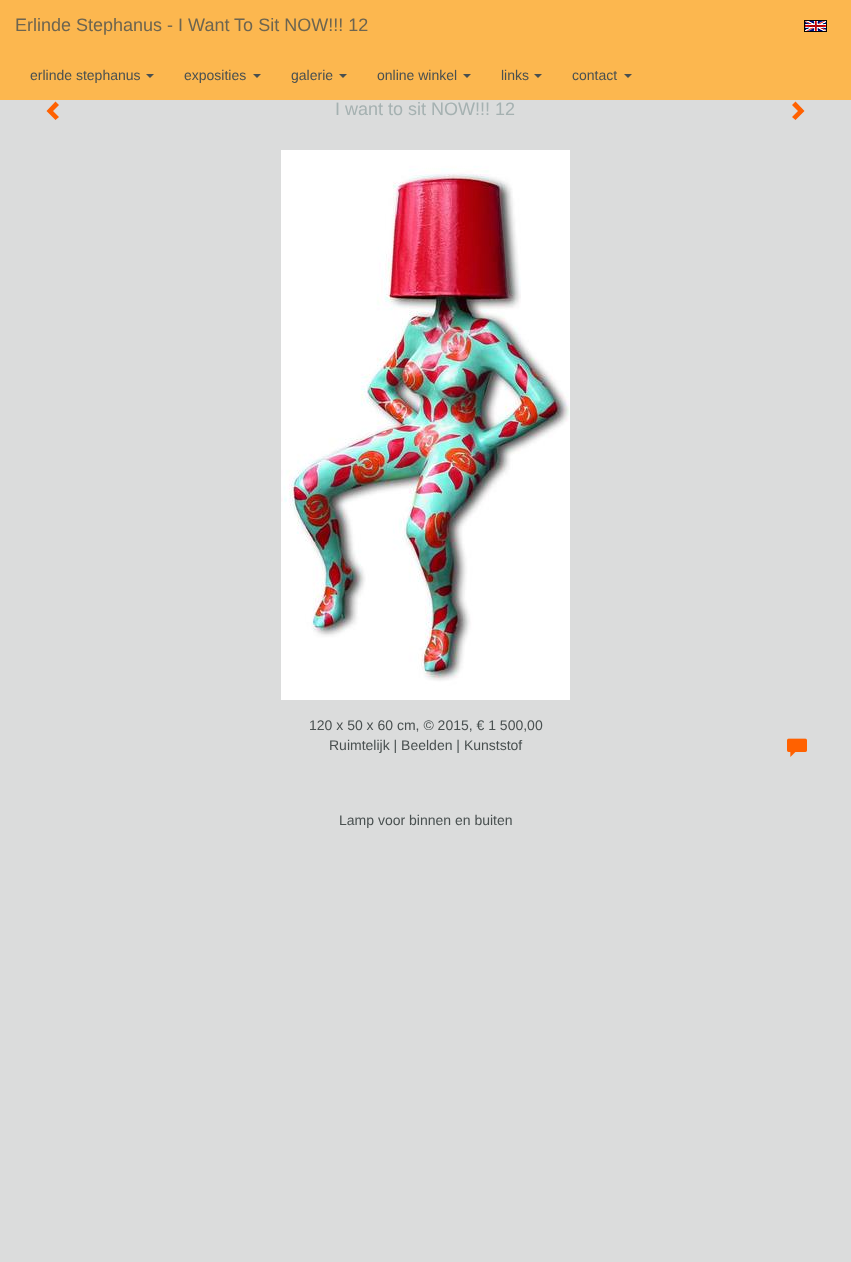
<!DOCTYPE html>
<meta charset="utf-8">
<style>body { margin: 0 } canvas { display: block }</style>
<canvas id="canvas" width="851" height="1262"></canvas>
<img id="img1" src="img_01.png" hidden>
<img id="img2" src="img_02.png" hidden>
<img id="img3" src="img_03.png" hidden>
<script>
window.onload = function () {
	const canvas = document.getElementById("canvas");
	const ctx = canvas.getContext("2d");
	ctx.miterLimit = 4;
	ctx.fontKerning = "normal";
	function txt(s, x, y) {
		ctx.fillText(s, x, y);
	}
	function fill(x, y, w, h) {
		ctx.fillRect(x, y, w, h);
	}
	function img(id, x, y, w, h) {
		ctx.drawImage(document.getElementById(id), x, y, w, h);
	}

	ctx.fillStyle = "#DBDCDC";
	fill(0, 0, 851, 1262);
	ctx.fillStyle = "#FCB74F";
	fill(0, 0, 851, 100);
	img("img1", 804, 20, 23, 12);
	ctx.fillStyle = "#495050";
	ctx.beginPath();
	ctx.moveTo(146, 74);
	ctx.lineTo(154, 74);
	ctx.lineTo(150, 78);
	ctx.closePath();
	ctx.fill();
	ctx.beginPath();
	ctx.moveTo(253, 74);
	ctx.lineTo(261, 74);
	ctx.lineTo(257, 78);
	ctx.closePath();
	ctx.fill();
	ctx.beginPath();
	ctx.moveTo(339, 74);
	ctx.lineTo(347, 74);
	ctx.lineTo(343, 78);
	ctx.closePath();
	ctx.fill();
	ctx.beginPath();
	ctx.moveTo(463, 74);
	ctx.lineTo(471, 74);
	ctx.lineTo(467, 78);
	ctx.closePath();
	ctx.fill();
	ctx.beginPath();
	ctx.moveTo(534, 74);
	ctx.lineTo(542, 74);
	ctx.lineTo(538, 78);
	ctx.closePath();
	ctx.fill();
	ctx.beginPath();
	ctx.moveTo(624, 74);
	ctx.lineTo(632, 74);
	ctx.lineTo(628, 78);
	ctx.closePath();
	ctx.fill();
	ctx.fillStyle = "#FF6100";
	ctx.beginPath();
	ctx.moveTo(59, 105);
	ctx.lineTo(53, 111);
	ctx.lineTo(59, 117);
	ctx.lineTo(55.5, 120);
	ctx.lineTo(46.5, 111);
	ctx.lineTo(55.5, 101.5);
	ctx.closePath();
	ctx.fill();
	ctx.beginPath();
	ctx.moveTo(804.5, 111);
	ctx.lineTo(795.5, 120);
	ctx.lineTo(792, 117);
	ctx.lineTo(798, 111);
	ctx.lineTo(792, 105);
	ctx.lineTo(795.5, 101.5);
	ctx.closePath();
	ctx.fill();
	img("img2", 281, 150, 289, 550);
	img("img3", 787, 738, 20, 19);
	ctx.font = "18px Liberation Sans";
	ctx.fillStyle = "#6D6550";
	txt("Erlinde Stephanus - I Want To Sit NOW!!! 12", 15, 31);
	ctx.font = "14px Liberation Sans";
	ctx.fillStyle = "#495050";
	txt("erlinde stephanus", 30, 80);
	txt("exposities", 184, 80);
	txt("galerie", 291, 80);
	txt("online winkel", 377, 80);
	txt("links", 501, 80);
	txt("contact", 572, 80);
	ctx.font = "18px Liberation Sans";
	ctx.fillStyle = "#A5B1B1";
	txt("I want to sit NOW!!! 12", 335, 115);
	ctx.font = "14px Liberation Sans";
	ctx.fillStyle = "#495050";
	txt("120 x 50 x 60 cm, © 2015, € 1 500,00", 309, 730);
	txt("Ruimtelijk | Beelden | Kunststof", 329, 750);
	txt("Lamp voor binnen en buiten", 339, 825);
};
</script>
